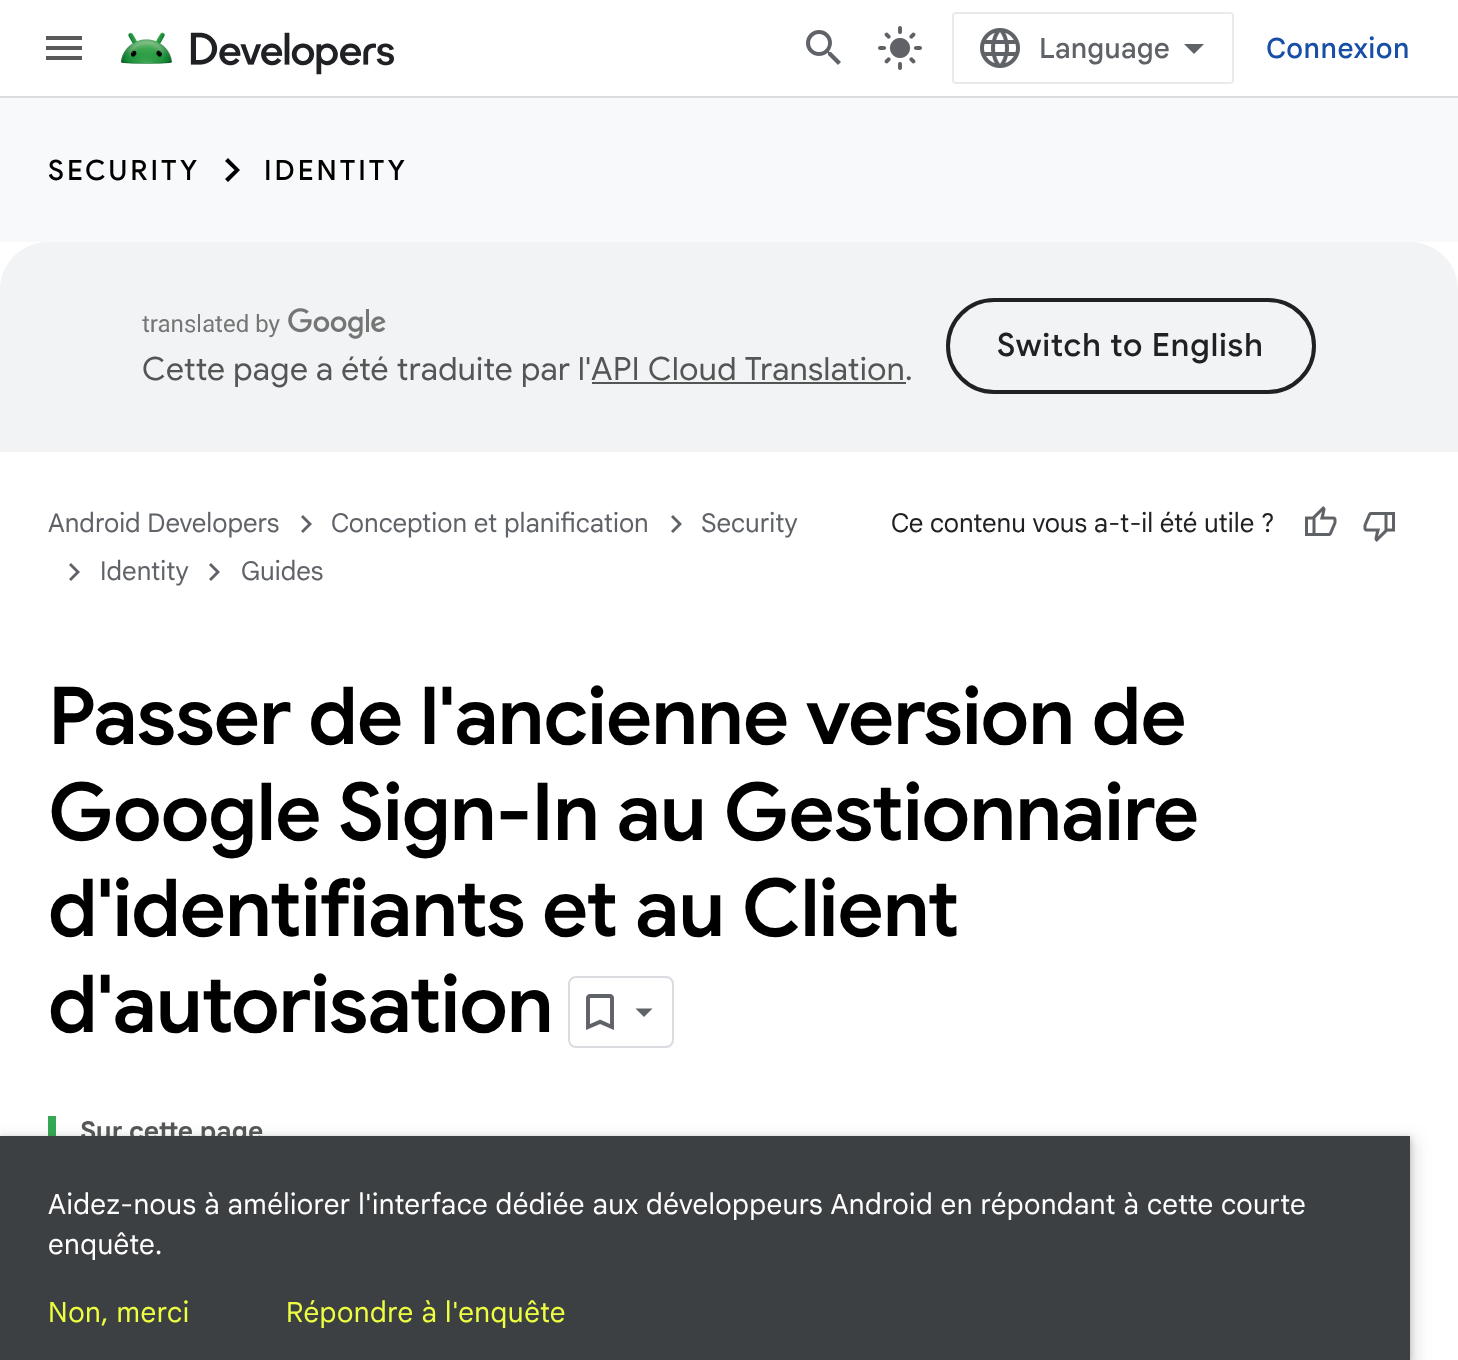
<!DOCTYPE html>
<meta charset="utf-8">
<style>body { margin: 0 } canvas { display: block }</style>
<canvas id="canvas" width="1458" height="1360"></canvas>
<img id="img1" src="img_01.png" hidden>
<img id="img2" src="img_02.png" hidden>
<img id="img3" src="img_03.png" hidden>
<img id="img4" src="img_04.png" hidden>
<img id="img5" src="img_05.png" hidden>
<img id="img6" src="img_06.png" hidden>
<img id="img7" src="img_07.png" hidden>
<img id="img8" src="img_08.png" hidden>
<script>
window.onload = function () {
	const canvas = document.getElementById("canvas");
	const ctx = canvas.getContext("2d");
	ctx.miterLimit = 4;
	ctx.fontKerning = "normal";
	function txt(s, x, y) {
		ctx.fillText(s, x, y);
	}
	function fill(x, y, w, h) {
		ctx.fillRect(x, y, w, h);
	}
	function img(id, x, y, w, h) {
		ctx.drawImage(document.getElementById(id), x, y, w, h);
	}

	ctx.fillStyle = "#FFFFFF";
	fill(0, 0, 1458, 1360);
	ctx.fillStyle = "#DADCE0";
	fill(0, 96, 1458, 2);
	ctx.fillStyle = "#595959";
	ctx.beginPath();
	ctx.moveTo(46, 36);
	ctx.lineTo(82, 36);
	ctx.lineTo(82, 40);
	ctx.lineTo(46, 40);
	ctx.closePath();
	ctx.moveTo(46, 50);
	ctx.lineTo(46, 46);
	ctx.lineTo(82, 46);
	ctx.lineTo(82, 50);
	ctx.closePath();
	ctx.moveTo(46, 60);
	ctx.lineTo(46, 56);
	ctx.lineTo(82, 56);
	ctx.lineTo(82, 60);
	ctx.closePath();
	ctx.fill();
	img("img1", 120, 32, 274, 43);
	img("img2", 806, 30, 35, 35);
	img("img3", 878, 26, 44, 44);
	ctx.beginPath();
	ctx.roundRect(953, 13, 280, 70, 3);
	ctx.strokeStyle = "#E8EAED";
	ctx.lineWidth = 2;
	ctx.stroke();
	img("img4", 980, 28, 40, 40);
	ctx.fillStyle = "#5F6368";
	ctx.beginPath();
	ctx.moveTo(1194, 54);
	ctx.lineTo(1184, 44);
	ctx.lineTo(1204, 44);
	ctx.closePath();
	ctx.fill();
	ctx.fillStyle = "#F8F9FA";
	fill(0, 98, 1458, 144);
	ctx.fillStyle = "#000000";
	ctx.beginPath();
	ctx.moveTo(228, 158);
	ctx.lineTo(240, 170);
	ctx.lineTo(228, 182);
	ctx.lineTo(225, 179);
	ctx.lineTo(234.5, 170);
	ctx.lineTo(225, 161);
	ctx.closePath();
	ctx.fill();
	ctx.fillStyle = "#F1F3F4";
	ctx.beginPath();
	ctx.roundRect(0, 242, 1458, 210, [48, 48, 0, 0]);
	ctx.fill();
	ctx.beginPath();
	ctx.roundRect(948, 300, 366, 92, 46);
	ctx.strokeStyle = "#202124";
	ctx.lineWidth = 4;
	ctx.stroke();
	img("img5", 142, 308, 244, 31);
	ctx.fillStyle = "#545555";
	fill(592, 382, 314, 2);
	ctx.fillStyle = "#5F6368";
	ctx.beginPath();
	ctx.moveTo(303, 515);
	ctx.lineTo(312, 524);
	ctx.lineTo(303, 533);
	ctx.lineTo(301, 531);
	ctx.lineTo(308, 524);
	ctx.lineTo(301, 517);
	ctx.closePath();
	ctx.fill();
	ctx.beginPath();
	ctx.moveTo(673, 515);
	ctx.lineTo(682, 524);
	ctx.lineTo(673, 533);
	ctx.lineTo(671, 531);
	ctx.lineTo(678, 524);
	ctx.lineTo(671, 517);
	ctx.closePath();
	ctx.fill();
	ctx.beginPath();
	ctx.moveTo(71, 563);
	ctx.lineTo(80, 572);
	ctx.lineTo(71, 581);
	ctx.lineTo(69, 579);
	ctx.lineTo(76, 572);
	ctx.lineTo(69, 565);
	ctx.closePath();
	ctx.fill();
	ctx.beginPath();
	ctx.moveTo(211, 563);
	ctx.lineTo(220, 572);
	ctx.lineTo(211, 581);
	ctx.lineTo(209, 579);
	ctx.lineTo(216, 572);
	ctx.lineTo(209, 565);
	ctx.closePath();
	ctx.fill();
	img("img6", 1305, 506, 32, 30);
	img("img7", 1363, 512, 32, 30);
	ctx.beginPath();
	ctx.roundRect(569, 977, 104, 70, 7);
	ctx.strokeStyle = "#DADCE0";
	ctx.lineWidth = 2;
	ctx.stroke();
	img("img8", 586, 994, 28, 36);
	ctx.beginPath();
	ctx.moveTo(635.5, 1008.5);
	ctx.lineTo(652.5, 1008.5);
	ctx.lineTo(644, 1017);
	ctx.closePath();
	ctx.fill();
	ctx.fillStyle = "#34A853";
	fill(48, 1116, 8, 20);
	ctx.fillStyle = "rgba(60, 64, 67, 0.15)";
	ctx.filter = "blur(8px)";
	ctx.beginPath();
	ctx.rect(-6, 1138, 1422, 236);
	ctx.fill();
	ctx.filter = "none";
	ctx.fillStyle = "rgba(60, 64, 67, 0.3)";
	ctx.filter = "blur(3px)";
	ctx.beginPath();
	ctx.rect(0, 1138, 1410, 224);
	ctx.fill();
	ctx.filter = "none";
	ctx.font = "500 28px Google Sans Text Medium";
	ctx.fillStyle = "#5F6368";
	txt("Language", 1039, 58);
	ctx.letterSpacing = "0.5px";
	ctx.fillStyle = "#174EA6";
	txt("Connexion", 1266, 58);
	ctx.letterSpacing = "3px";
	ctx.font = "500 28px Google Sans";
	ctx.fillStyle = "#000000";
	txt("SECURITY", 48, 180);
	txt("IDENTITY", 264, 180);
	ctx.letterSpacing = "1px";
	ctx.font = "500 32px Google Sans";
	ctx.fillStyle = "#202124";
	txt("Switch to English", 997, 356);
	ctx.letterSpacing = "0.5px";
	ctx.wordSpacing = "-0.25px";
	ctx.font = "32px Google Sans";
	ctx.fillStyle = "#545555";
	txt("Cette page a été traduite par l'", 142, 380);
	ctx.wordSpacing = "0px";
	txt("API Cloud Translation.", 591, 380);
	ctx.letterSpacing = "0px";
	ctx.font = "26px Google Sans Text";
	ctx.fillStyle = "#5F6368";
	txt("Android Developers", 48, 532);
	txt("Conception et planification", 331, 532);
	txt("Security", 701, 532);
	txt("Identity", 100, 580);
	txt("Guides", 241, 580);
	ctx.fillStyle = "#202124";
	txt("Ce contenu vous a-t-il été utile ?", 891, 532);
	ctx.letterSpacing = "-1px";
	ctx.font = "600 80px Google Sans";
	ctx.fillStyle = "#000000";
	txt("Passer de l'ancienne version de", 48, 744);
	txt("Google Sign-In au Gestionnaire", 48, 840);
	txt("d'identifiants et au Client", 48, 936);
	txt("d'autorisation", 48, 1032);
	ctx.letterSpacing = "0px";
	ctx.font = "bold 26px Google Sans Text";
	ctx.fillStyle = "#545555";
	txt("Sur cette page", 80, 1140);
	ctx.fillStyle = "#3C4043";
	fill(0, 1136, 1410, 224);
	ctx.letterSpacing = "0.4px";
	ctx.font = "28px Google Sans Text";
	ctx.fillStyle = "#FFFFFF";
	txt("Aidez-nous à améliorer l'interface dédiée aux développeurs Android en répondant à cette courte", 48, 1214);
	txt("enquête.", 48, 1254);
	ctx.letterSpacing = "0.5px";
	ctx.fillStyle = "#EEFF41";
	txt("Non, merci", 48, 1322);
	txt("Répondre à l'enquête", 286, 1322);
};
</script>
